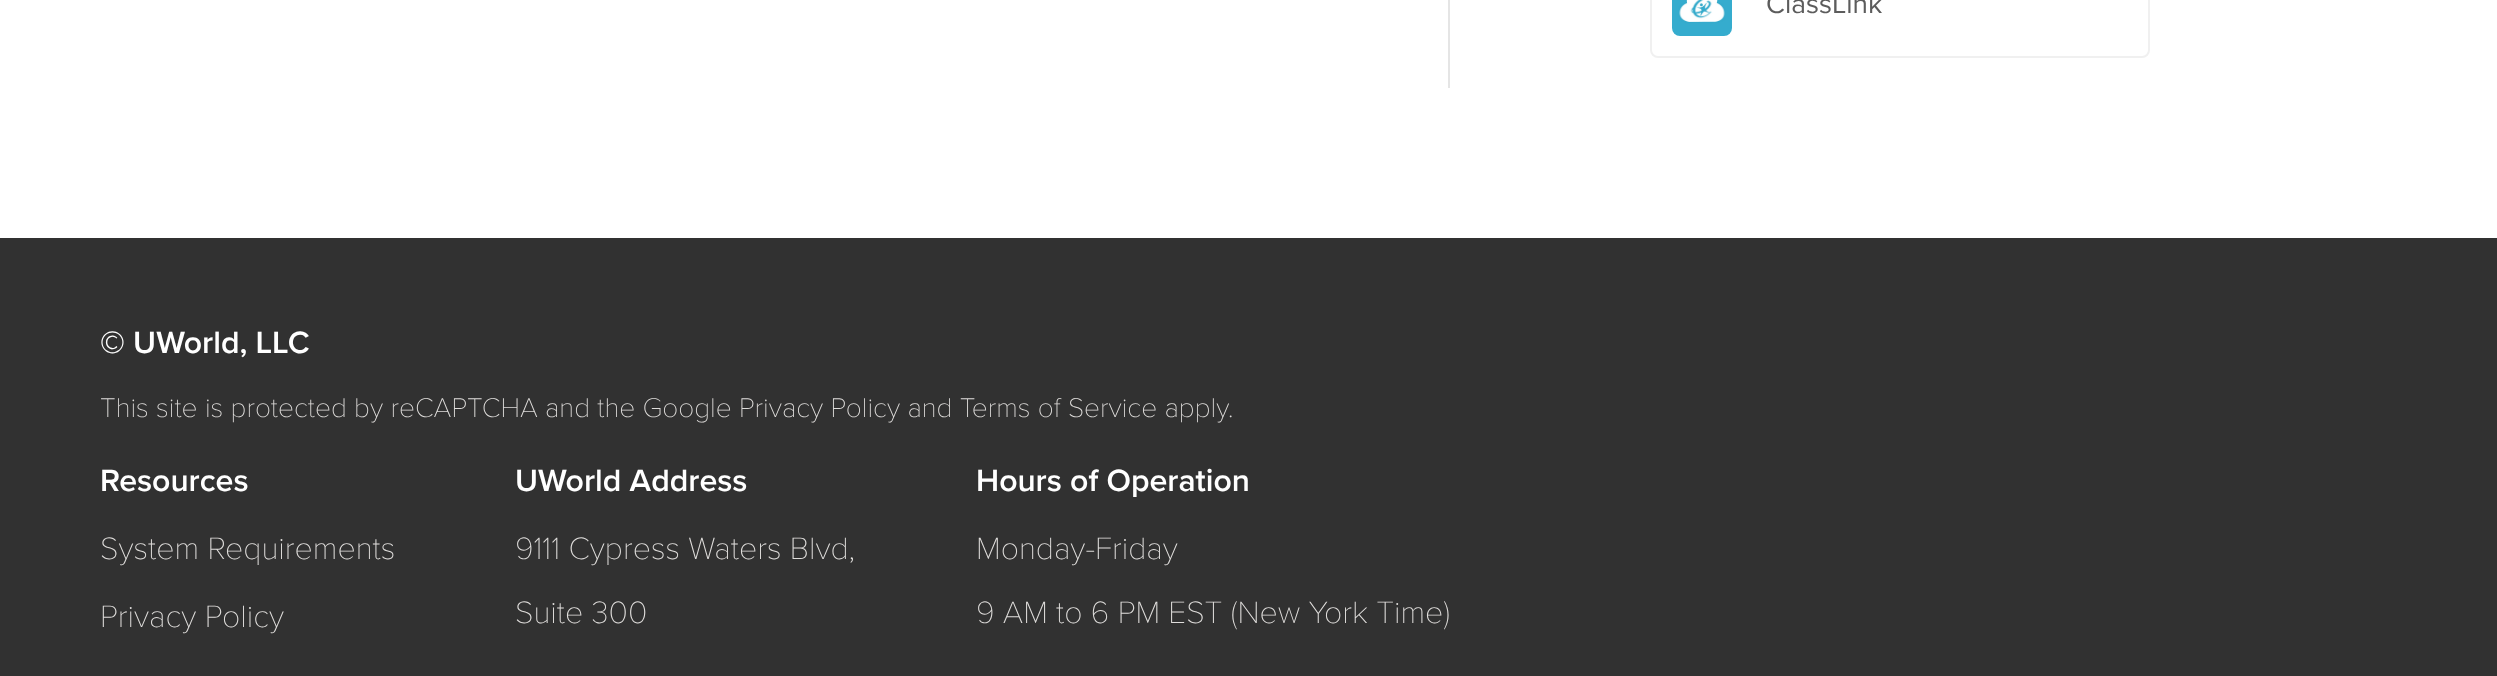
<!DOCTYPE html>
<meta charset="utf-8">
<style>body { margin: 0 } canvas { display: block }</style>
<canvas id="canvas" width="2497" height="676"></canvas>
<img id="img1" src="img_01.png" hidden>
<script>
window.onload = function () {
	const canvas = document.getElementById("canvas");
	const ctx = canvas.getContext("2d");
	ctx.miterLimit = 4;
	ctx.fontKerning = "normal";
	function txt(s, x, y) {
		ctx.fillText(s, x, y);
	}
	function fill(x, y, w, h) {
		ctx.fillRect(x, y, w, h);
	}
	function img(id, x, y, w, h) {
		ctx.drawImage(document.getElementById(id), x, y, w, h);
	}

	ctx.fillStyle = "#FFFFFF";
	fill(0, 0, 2497, 676);
	ctx.fillStyle = "#E5E5E5";
	fill(1448, 0, 2, 88);
	ctx.beginPath();
	ctx.roundRect(1651, -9, 498, 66, 7);
	ctx.strokeStyle = "#F0F0F0";
	ctx.lineWidth = 2;
	ctx.stroke();
	img("img1", 1672, 0, 60, 36);
	ctx.fillStyle = "#313131";
	fill(0, 238, 2497, 438);
	ctx.font = "28px Proxima Nova";
	ctx.fillStyle = "#5C5C5C";
	txt("ClassLink", 1766, 13);
	ctx.font = "600 32px Proxima Nova";
	ctx.fillStyle = "#FFFFFF";
	txt("© UWorld, LLC", 100, 353);
	ctx.font = "100 28px Proxima Nova";
	ctx.fillStyle = "#DFDDDB";
	txt("This site is protected by reCAPTCHA and the Google Privacy Policy and Terms of Service apply.", 100, 417);
	ctx.font = "600 32px Proxima Nova";
	ctx.fillStyle = "#FFFFFF";
	txt("Resources", 100, 491);
	ctx.font = "100 32px Proxima Nova";
	ctx.fillStyle = "#DFDDDB";
	txt("System Requirements", 100, 559);
	txt("Privacy Policy", 100, 627);
	ctx.font = "600 32px Proxima Nova";
	ctx.fillStyle = "#FFFFFF";
	txt("UWorld Address", 515, 491);
	ctx.font = "100 32px Proxima Nova";
	ctx.fillStyle = "#DFDDDB";
	txt("9111 Cypress Waters Blvd,", 515, 559);
	txt("Suite 300", 515, 623);
	ctx.font = "600 32px Proxima Nova";
	ctx.fillStyle = "#FFFFFF";
	txt("Hours of Operation", 976, 491);
	ctx.font = "100 32px Proxima Nova";
	ctx.fillStyle = "#DFDDDB";
	txt("Monday-Friday", 976, 559);
	txt("9 AM to 6 PM EST (New York Time)", 976, 623);
};
</script>
